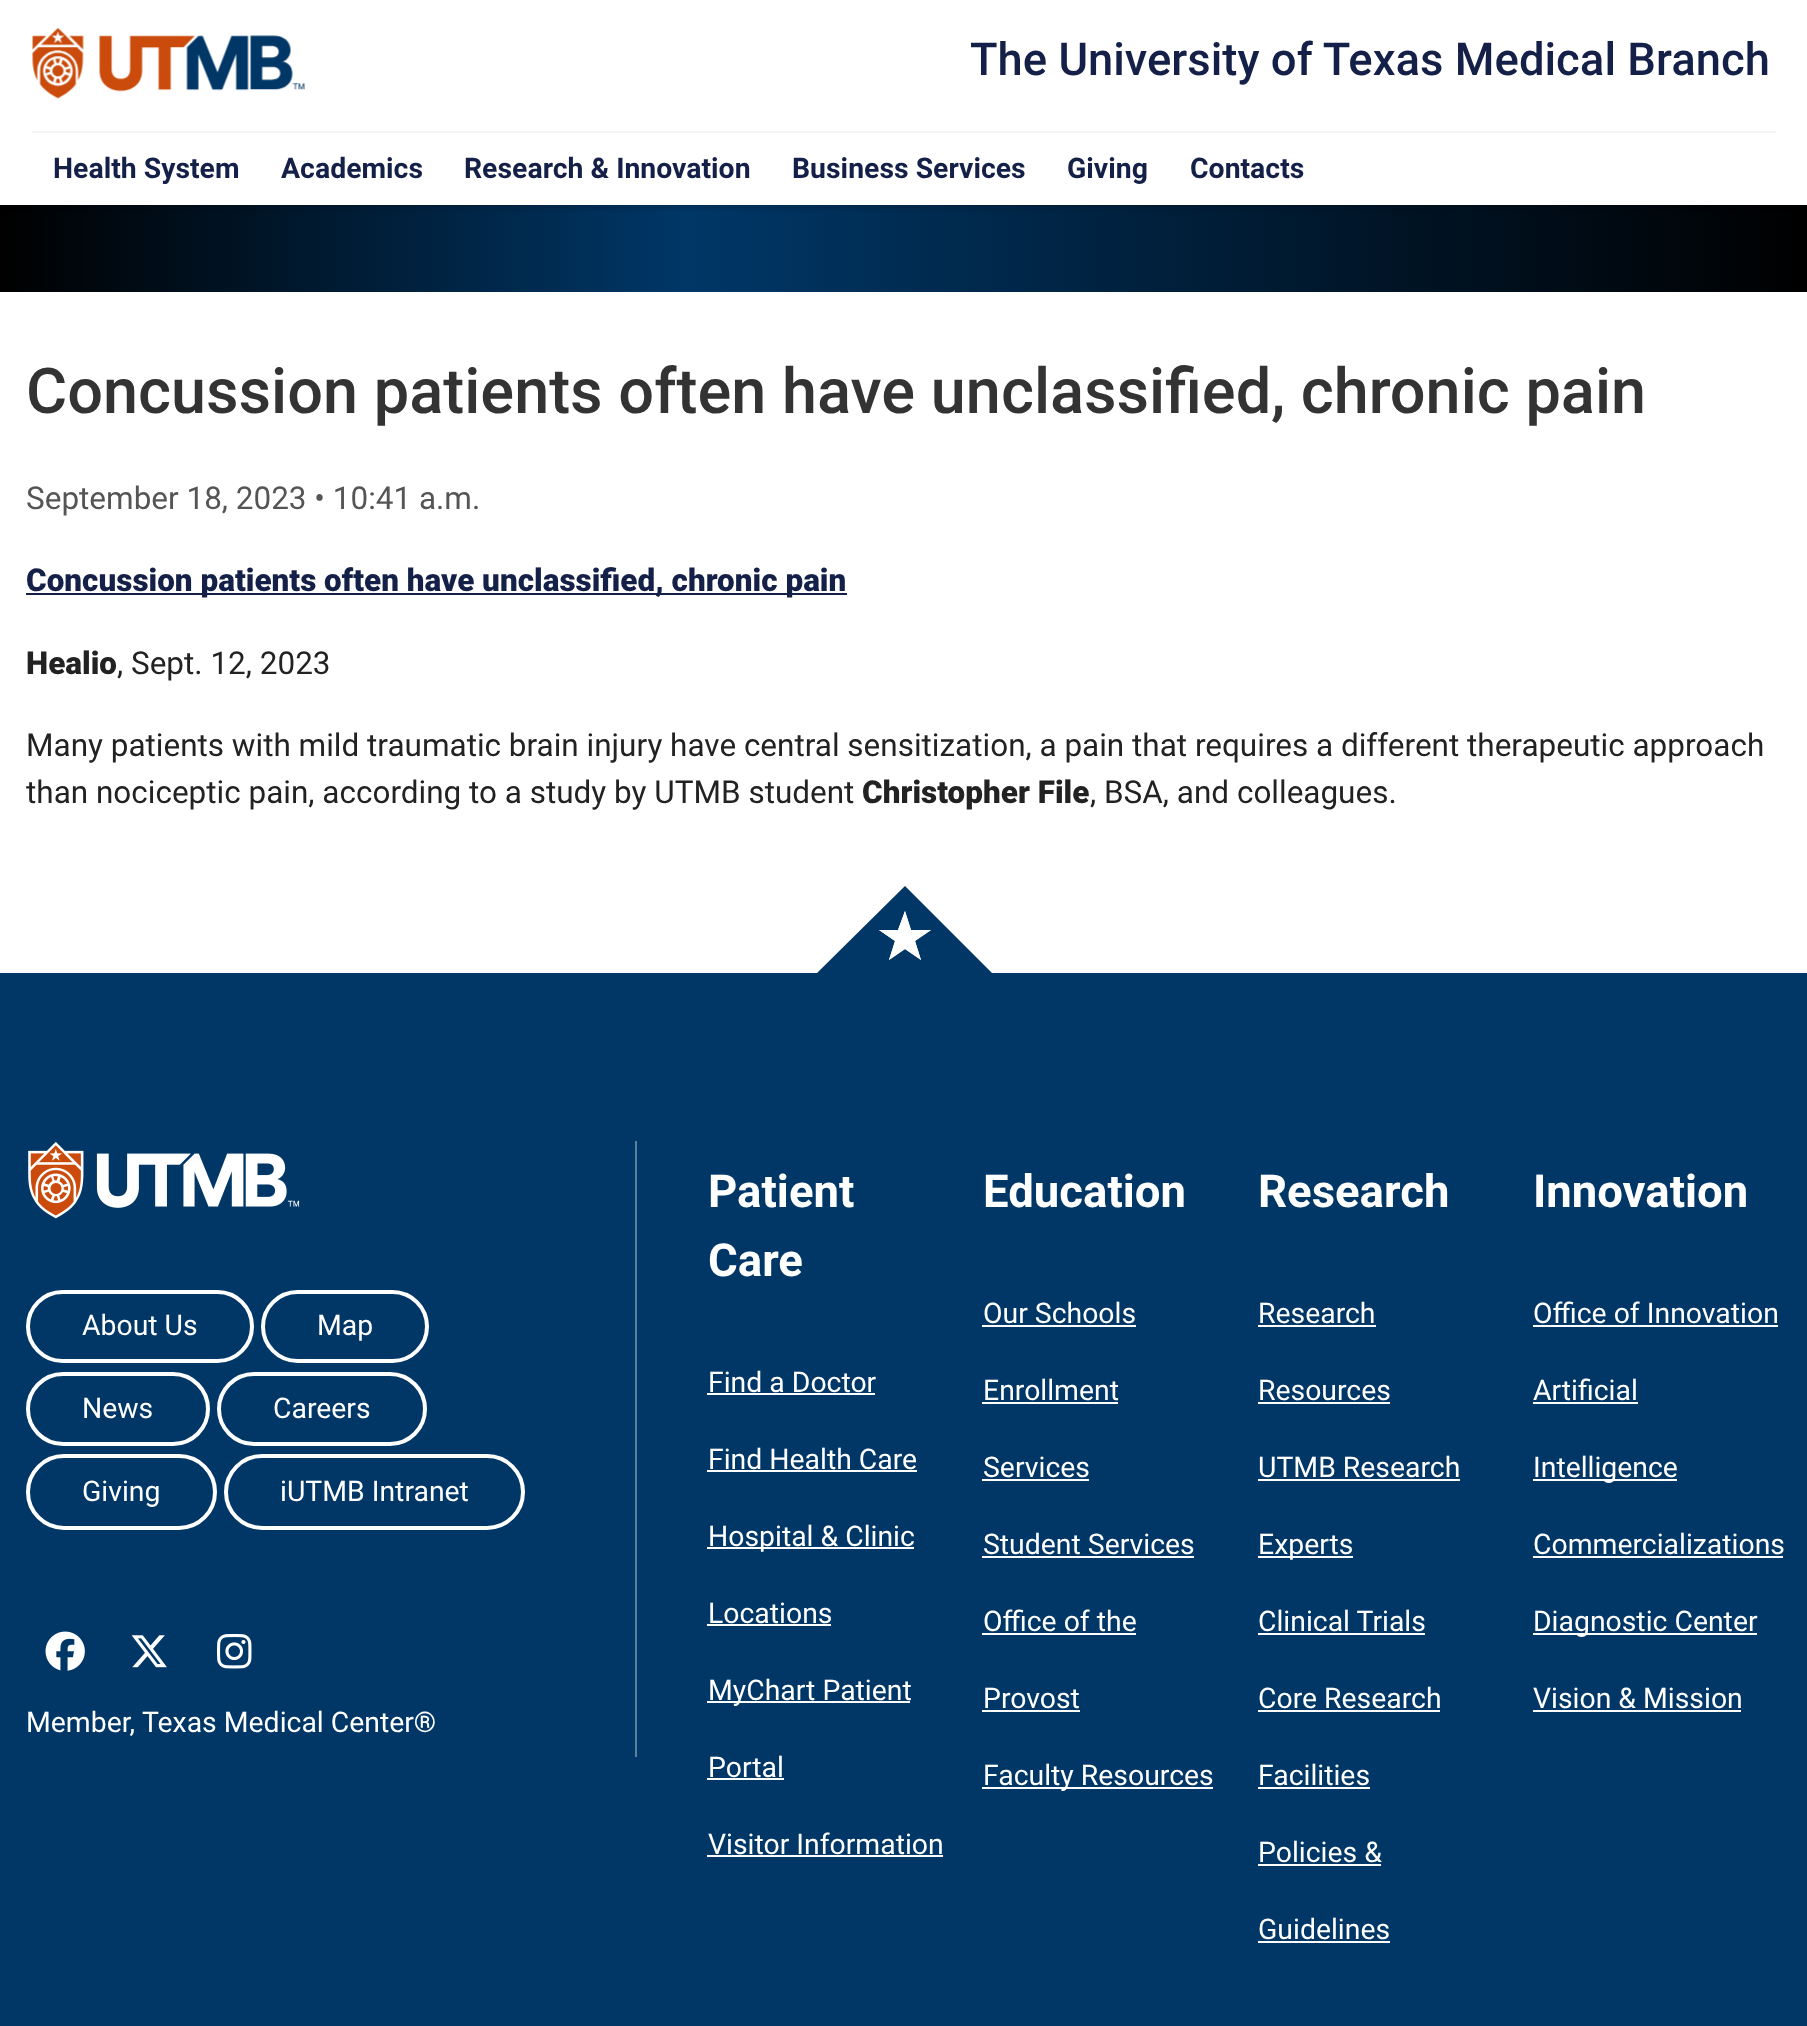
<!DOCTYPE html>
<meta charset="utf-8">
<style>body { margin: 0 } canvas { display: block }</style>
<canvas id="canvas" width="1807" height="2026"></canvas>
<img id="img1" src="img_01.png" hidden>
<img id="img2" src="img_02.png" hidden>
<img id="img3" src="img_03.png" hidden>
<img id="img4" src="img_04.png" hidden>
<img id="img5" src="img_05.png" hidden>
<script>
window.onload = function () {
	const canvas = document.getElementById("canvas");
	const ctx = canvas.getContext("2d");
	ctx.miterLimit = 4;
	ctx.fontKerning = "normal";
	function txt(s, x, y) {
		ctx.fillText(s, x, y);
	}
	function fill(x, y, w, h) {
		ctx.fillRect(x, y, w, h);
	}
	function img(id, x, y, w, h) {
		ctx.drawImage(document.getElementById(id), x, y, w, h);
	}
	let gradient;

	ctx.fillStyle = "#FFFFFF";
	fill(0, 0, 1807, 2026);
	gradient = ctx.createLinearGradient(0, 160, 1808, 160);
	gradient.addColorStop(0, "#000000");
	gradient.addColorStop(0.38, "#003767");
	gradient.addColorStop(1, "#000000");
	ctx.fillStyle = gradient;
	fill(0, 205, 1807, 87);
	ctx.fillStyle = "rgba(0, 0, 0, 0.16)";
	ctx.filter = "blur(2.5px)";
	ctx.beginPath();
	ctx.rect(0, 4, 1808, 204);
	ctx.fill();
	ctx.filter = "none";
	ctx.fillStyle = "#FFFFFF";
	fill(0, 0, 1807, 205);
	img("img1", 32, 27, 273, 72);
	ctx.fillStyle = "#F5F5F5";
	fill(32, 131, 1744, 2);
	ctx.fillStyle = "#142047";
	fill(26, 593, 821, 2);
	ctx.fillStyle = "#003767";
	fill(0, 973, 1807, 1053);
	ctx.beginPath();
	ctx.moveTo(898, 930);
	ctx.lineTo(905, 911);
	ctx.lineTo(911, 930);
	ctx.lineTo(931, 930);
	ctx.lineTo(915, 941);
	ctx.lineTo(921, 960);
	ctx.lineTo(905, 949);
	ctx.lineTo(889, 960);
	ctx.lineTo(895, 941);
	ctx.lineTo(879, 930);
	ctx.closePath();
	ctx.moveTo(905, 973);
	ctx.lineTo(992, 973);
	ctx.lineTo(905, 886);
	ctx.lineTo(817, 973);
	ctx.closePath();
	ctx.fill();
	ctx.fillStyle = "#FFFFFF";
	ctx.beginPath();
	ctx.moveTo(915, 941);
	ctx.lineTo(931, 930);
	ctx.lineTo(911, 930);
	ctx.lineTo(905, 911);
	ctx.lineTo(898, 930);
	ctx.lineTo(879, 930);
	ctx.lineTo(895, 941);
	ctx.lineTo(889, 960);
	ctx.lineTo(905, 949);
	ctx.lineTo(921, 960);
	ctx.closePath();
	ctx.fill();
	ctx.fillStyle = "#5C7F9E";
	fill(635, 1141, 2, 616);
	img("img2", 28, 1142, 272, 77);
	ctx.beginPath();
	ctx.roundRect(28, 1292, 224, 69, 34.5);
	ctx.strokeStyle = "#FFFFFF";
	ctx.lineWidth = 4;
	ctx.stroke();
	ctx.beginPath();
	ctx.roundRect(263, 1292, 164, 69, 34.5);
	ctx.stroke();
	ctx.beginPath();
	ctx.roundRect(28, 1374, 180, 70, 35);
	ctx.stroke();
	ctx.beginPath();
	ctx.roundRect(219, 1374, 206, 70, 35);
	ctx.stroke();
	ctx.beginPath();
	ctx.roundRect(28, 1456, 187, 72, 36);
	ctx.stroke();
	ctx.beginPath();
	ctx.roundRect(226, 1456, 297, 72, 36);
	ctx.stroke();
	img("img3", 45, 1631, 40, 40);
	img("img4", 131, 1635, 36, 33);
	img("img5", 217, 1634, 35, 35);
	ctx.fillStyle = "#FFFFFF";
	fill(707, 1393, 168, 2);
	fill(707, 1470, 210, 2);
	fill(707, 1547, 207, 2);
	fill(707, 1624, 124, 2);
	fill(707, 1701, 203, 2);
	fill(707, 1778, 77, 2);
	fill(707, 1855, 236, 2);
	fill(982, 1325, 154, 2);
	fill(982, 1402, 136, 2);
	fill(982, 1479, 107, 2);
	fill(982, 1556, 212, 2);
	fill(982, 1633, 154, 2);
	fill(982, 1710, 98, 2);
	fill(982, 1787, 231, 2);
	fill(1258, 1325, 118, 2);
	fill(1258, 1402, 132, 2);
	fill(1258, 1479, 202, 2);
	fill(1258, 1556, 95, 2);
	fill(1258, 1633, 167, 2);
	fill(1258, 1710, 182, 2);
	fill(1258, 1787, 112, 2);
	fill(1258, 1864, 123, 2);
	fill(1258, 1941, 132, 2);
	fill(1533, 1325, 245, 2);
	fill(1533, 1402, 105, 2);
	fill(1533, 1479, 144, 2);
	fill(1533, 1556, 250, 2);
	fill(1533, 1633, 224, 2);
	fill(1533, 1710, 208, 2);
	ctx.font = "500 45.4px Roboto";
	ctx.fillStyle = "#142047";
	txt("The University of Texas Medical Branch", 970, 75);
	ctx.font = "bold 28.4px Roboto";
	txt("Health System", 53, 178);
	txt("Academics", 281, 178);
	txt("Research & Innovation", 464, 178);
	txt("Business Services", 792, 178);
	txt("Giving", 1067, 178);
	txt("Contacts", 1190, 178);
	ctx.font = "500 63px Roboto";
	ctx.fillStyle = "#333333";
	txt("Concussion patients often have unclassified, chronic pain", 26, 413);
	ctx.font = "31.5px Roboto";
	ctx.fillStyle = "#555555";
	txt("September 18, 2023 • 10:41 a.m.", 26, 509);
	ctx.font = "900 31.5px Roboto";
	ctx.fillStyle = "#142047";
	txt("Concussion patients often have unclassified, chronic pain", 26, 591);
	ctx.fillStyle = "#222222";
	txt("Healio", 26, 674);
	ctx.font = "31.5px Roboto";
	txt(", Sept. 12, 2023", 117, 674);
	txt("Many patients with mild traumatic brain injury have central sensitization, a pain that requires a different therapeutic approach", 26, 756);
	txt("than nociceptic pain, according to a study by UTMB student", 26, 803);
	ctx.font = "900 31.5px Roboto";
	txt("Christopher File", 862, 803);
	ctx.font = "31.5px Roboto";
	txt(", BSA, and colleagues.", 1090, 803);
	ctx.font = "28.4px Roboto";
	ctx.fillStyle = "#FFFFFF";
	txt("About Us", 82, 1335);
	txt("Map", 317, 1335);
	txt("News", 82, 1418);
	txt("Careers", 273, 1418);
	txt("Giving", 82, 1501);
	txt("iUTMB Intranet", 280, 1501);
	txt("Member,", 26, 1732);
	txt("Texas Medical Center®", 142, 1732);
	ctx.font = "bold 45.5px Roboto";
	txt("Patient", 708, 1207);
	txt("Care", 708, 1276);
	ctx.font = "28.4px Roboto";
	txt("Find a Doctor", 708, 1392);
	txt("Find Health Care", 708, 1469);
	txt("Hospital & Clinic", 708, 1546);
	txt("Locations", 708, 1623);
	txt("MyChart Patient", 708, 1700);
	txt("Portal", 708, 1777);
	txt("Visitor Information", 708, 1854);
	ctx.font = "bold 45.5px Roboto";
	txt("Education", 983, 1207);
	ctx.font = "28.4px Roboto";
	txt("Our Schools", 983, 1323);
	txt("Enrollment", 983, 1400);
	txt("Services", 983, 1477);
	txt("Student Services", 983, 1554);
	txt("Office of the", 983, 1631);
	txt("Provost", 983, 1708);
	txt("Faculty Resources", 983, 1785);
	ctx.font = "bold 45.5px Roboto";
	txt("Research", 1258, 1207);
	ctx.font = "28.4px Roboto";
	txt("Research", 1258, 1323);
	txt("Resources", 1258, 1400);
	txt("UTMB Research", 1258, 1477);
	txt("Experts", 1258, 1554);
	txt("Clinical Trials", 1258, 1631);
	txt("Core Research", 1258, 1708);
	txt("Facilities", 1258, 1785);
	txt("Policies &", 1258, 1862);
	txt("Guidelines", 1258, 1939);
	ctx.font = "bold 45.5px Roboto";
	txt("Innovation", 1533, 1207);
	ctx.font = "28.4px Roboto";
	txt("Office of Innovation", 1533, 1323);
	txt("Artificial", 1533, 1400);
	txt("Intelligence", 1533, 1477);
	txt("Commercializations", 1533, 1554);
	txt("Diagnostic Center", 1533, 1631);
	txt("Vision & Mission", 1533, 1708);
};
</script>
